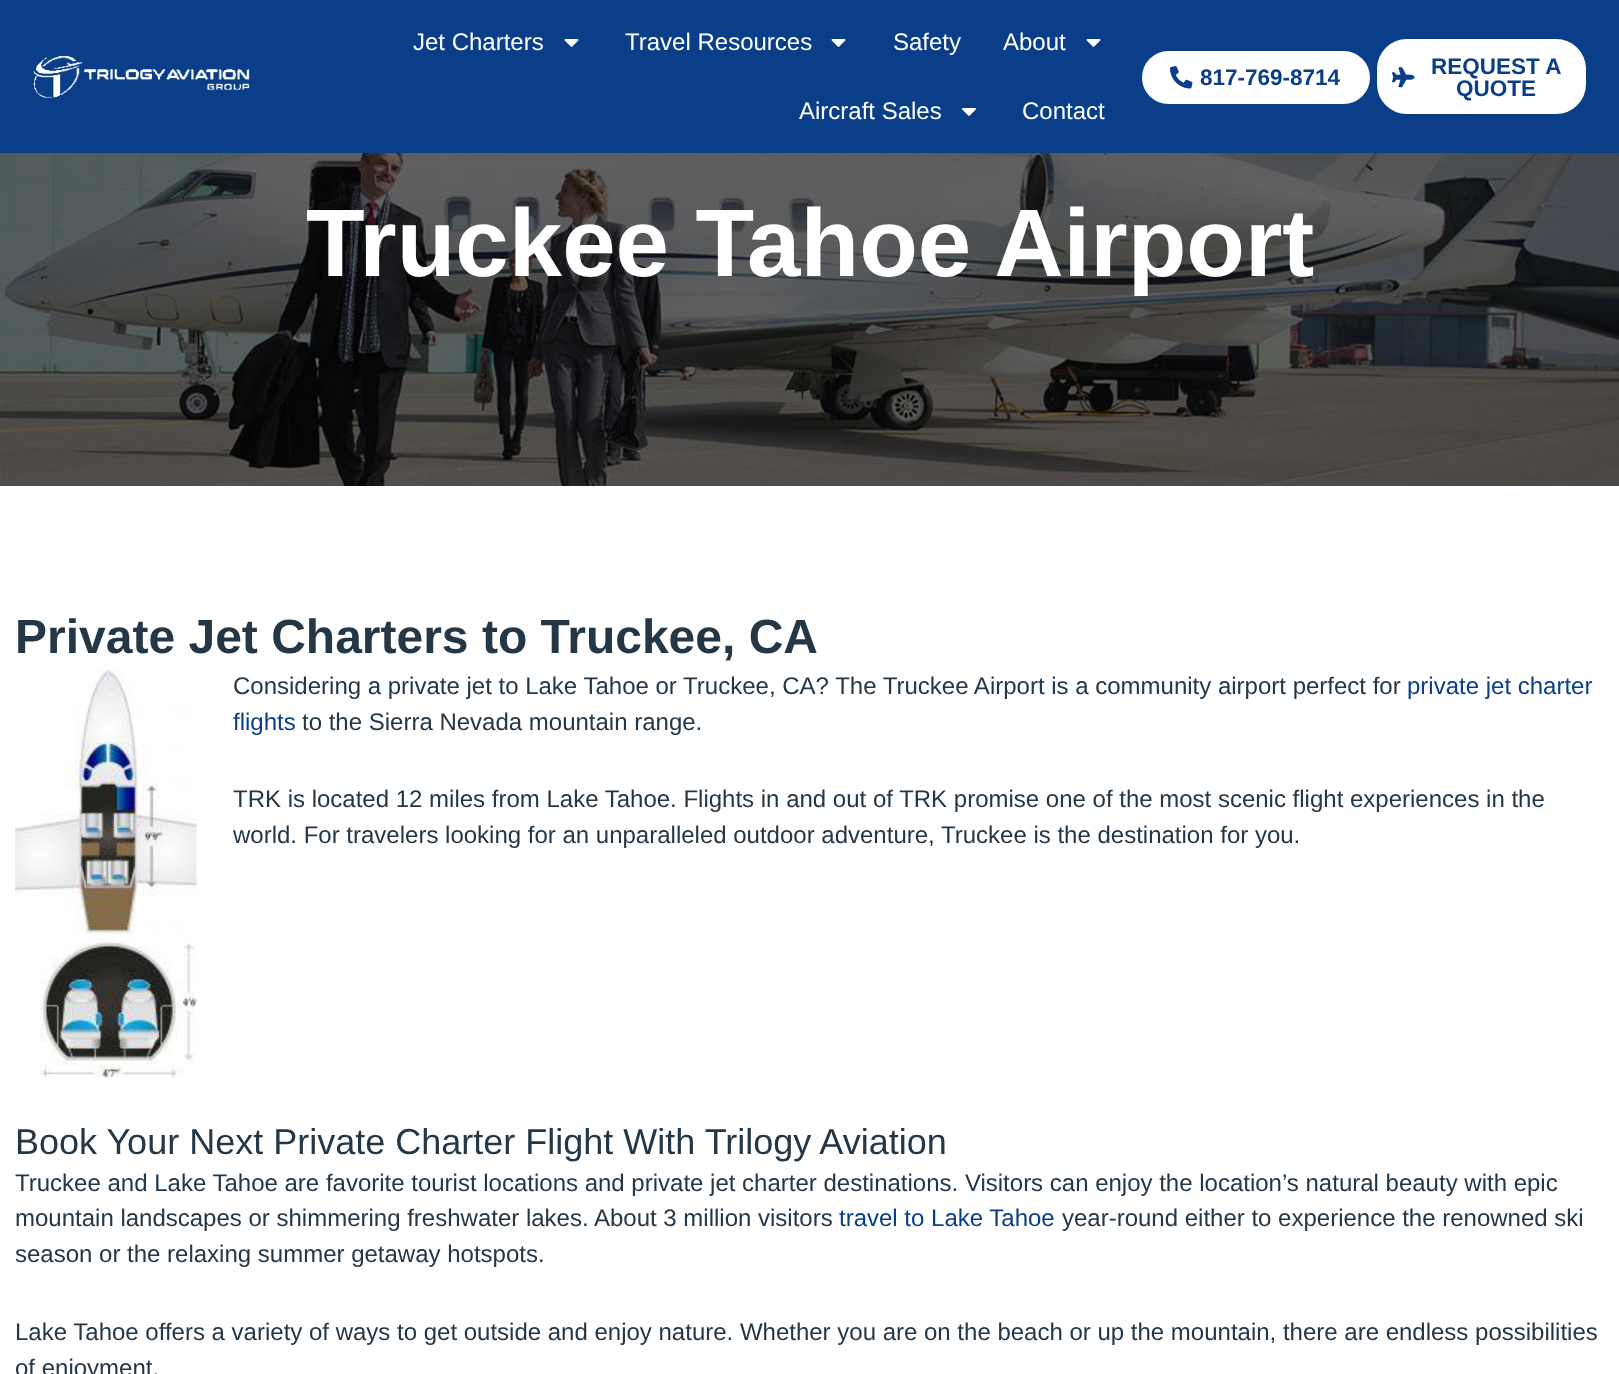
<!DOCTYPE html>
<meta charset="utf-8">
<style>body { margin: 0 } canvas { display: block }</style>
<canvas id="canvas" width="1619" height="1374"></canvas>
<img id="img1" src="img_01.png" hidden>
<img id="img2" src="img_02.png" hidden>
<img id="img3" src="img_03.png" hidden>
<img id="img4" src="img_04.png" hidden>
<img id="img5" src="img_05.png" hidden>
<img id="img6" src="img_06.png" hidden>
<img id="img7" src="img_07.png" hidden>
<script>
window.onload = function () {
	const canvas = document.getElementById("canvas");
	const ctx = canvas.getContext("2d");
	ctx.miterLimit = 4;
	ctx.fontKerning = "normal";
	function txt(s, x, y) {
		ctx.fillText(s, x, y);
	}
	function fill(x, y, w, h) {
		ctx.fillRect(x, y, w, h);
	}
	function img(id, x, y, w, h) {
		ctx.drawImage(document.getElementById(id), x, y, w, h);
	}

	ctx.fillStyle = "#FFFFFF";
	fill(0, 0, 1619, 1374);
	ctx.fillStyle = "#0A3E89";
	fill(0, 0, 1619, 153);
	img("img1", 33, 56, 217, 42);
	img("img2", 564, 39, 15, 8);
	img("img2", 831, 39, 15, 8);
	img("img2", 1086, 39, 15, 8);
	img("img3", 962, 108, 14, 8);
	ctx.fillStyle = "#FFFFFF";
	ctx.beginPath();
	ctx.roundRect(1143.5, 52.5, 225, 50, 25);
	ctx.fill();
	ctx.strokeStyle = "#FFFFFF";
	ctx.lineWidth = 3;
	ctx.stroke();
	img("img4", 1170, 66, 23, 23);
	ctx.beginPath();
	ctx.roundRect(1378.5, 40.5, 206, 72, 28.5);
	ctx.fill();
	ctx.stroke();
	img("img5", 1392, 67, 23, 21);
	img("img6", 0, 153, 1619, 333);
	img("img7", 15, 669, 182, 409);
	ctx.font = "24px Liberation Sans";
	txt("Jet Charters", 413, 50);
	txt("Travel Resources", 625, 50);
	txt("Safety", 893, 50);
	txt("About", 1003, 50);
	txt("Aircraft Sales", 799, 119);
	txt("Contact", 1022, 119);
	ctx.font = "bold 22.5px Liberation Sans";
	ctx.fillStyle = "#0A3E89";
	txt("817-769-8714", 1200, 85);
	txt("REQUEST A", 1431, 74);
	txt("QUOTE", 1456, 96);
	ctx.font = "bold 96px Liberation Sans";
	ctx.fillStyle = "#FFFFFF";
	txt("Truckee Tahoe Airport", 306, 276);
	ctx.font = "bold 48px Liberation Sans";
	ctx.fillStyle = "#243746";
	txt("Private Jet Charters to Truckee, CA", 15, 653);
	ctx.font = "24px Liberation Sans";
	txt("Considering a private jet to Lake Tahoe or Truckee, CA? The Truckee Airport is a community airport perfect for", 233, 694);
	ctx.fillStyle = "#0A3E89";
	txt("private jet charter", 1407, 694);
	txt("flights", 233, 730);
	ctx.fillStyle = "#243746";
	txt("to the Sierra Nevada mountain range.", 302, 730);
	txt("TRK is located 12 miles from Lake Tahoe. Flights in and out of TRK promise one of the most scenic flight experiences in the", 233, 807);
	txt("world. For travelers looking for an unparalleled outdoor adventure, Truckee is the destination for you.", 233, 843);
	ctx.font = "36px Liberation Sans";
	txt("Book Your Next Private Charter Flight With Trilogy Aviation", 15, 1154);
	ctx.font = "24px Liberation Sans";
	txt("Truckee and Lake Tahoe are favorite tourist locations and private jet charter destinations. Visitors can enjoy the location’s natural beauty with epic", 15, 1191);
	txt("mountain landscapes or shimmering freshwater lakes. About 3 million visitors", 15, 1226);
	ctx.fillStyle = "#0A3E89";
	txt("travel to Lake Tahoe", 839, 1226);
	ctx.fillStyle = "#243746";
	txt("year-round either to experience the renowned ski", 1062, 1226);
	txt("season or the relaxing summer getaway hotspots.", 15, 1262);
	txt("Lake Tahoe offers a variety of ways to get outside and enjoy nature. Whether you are on the beach or up the mountain, there are endless possibilities", 15, 1340);
	txt("of enjoyment.", 15, 1376);
};
</script>
